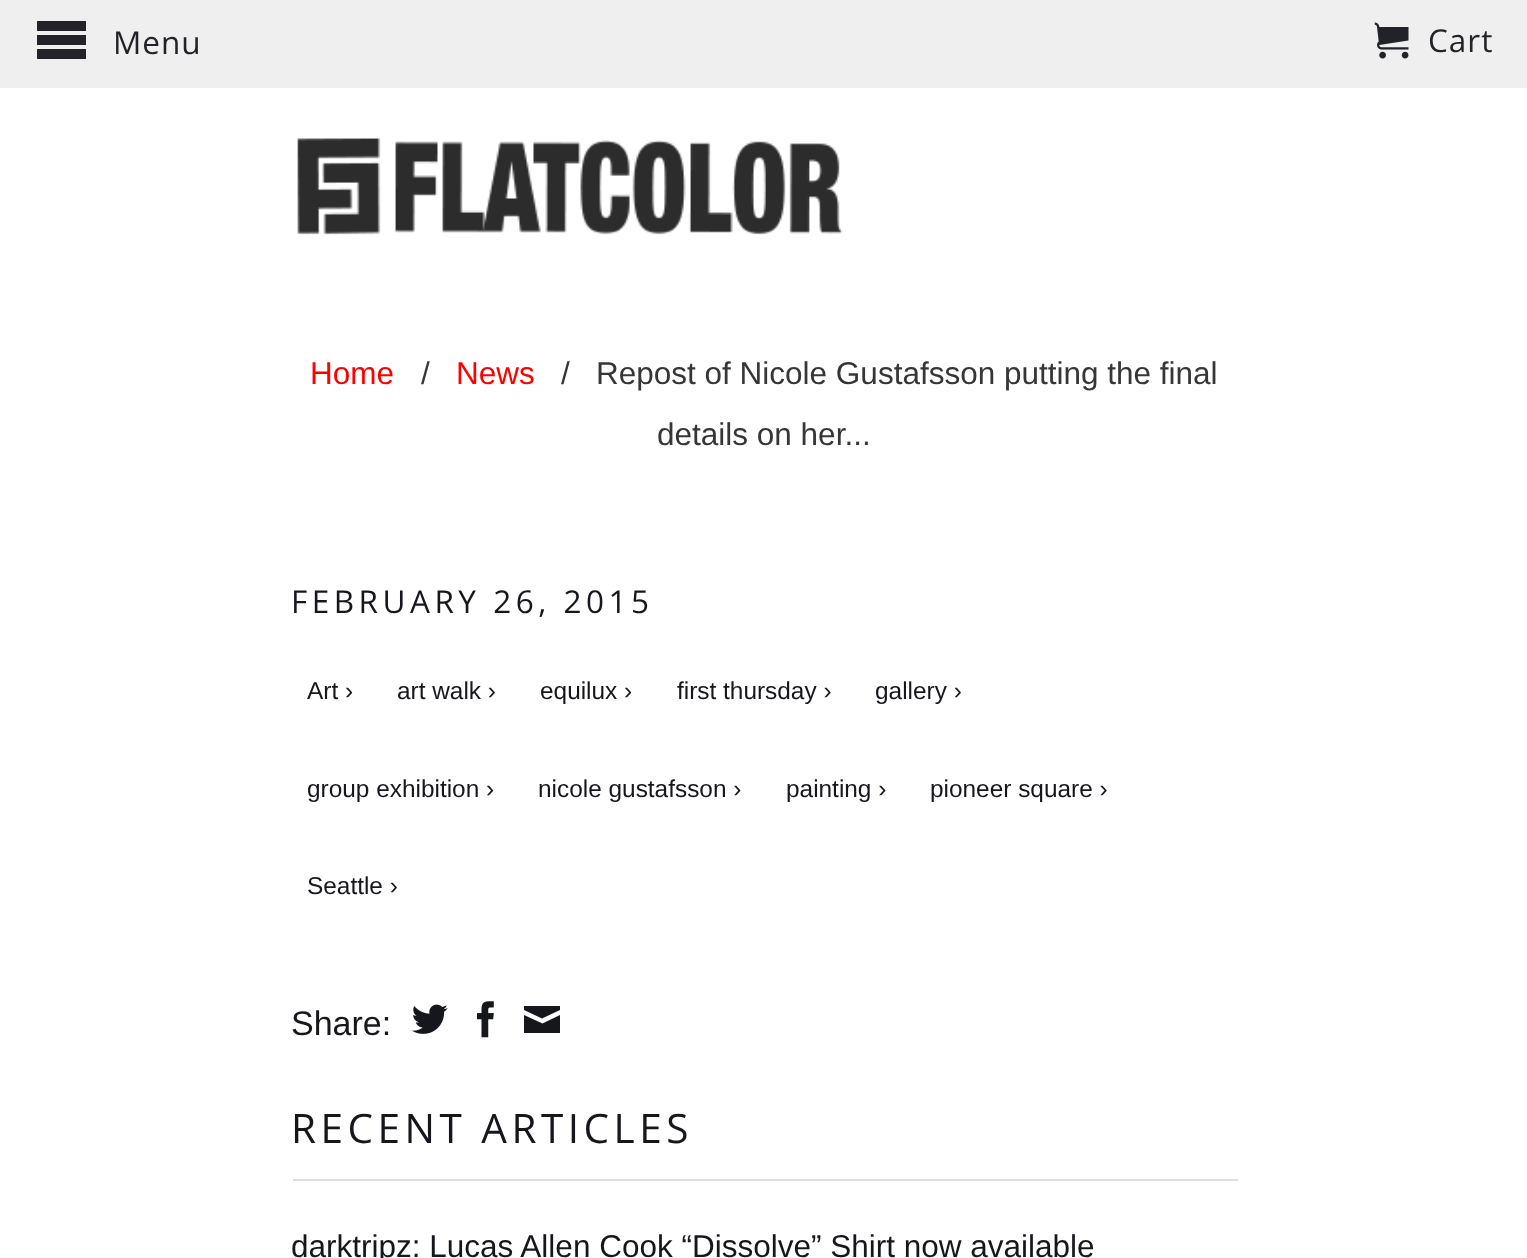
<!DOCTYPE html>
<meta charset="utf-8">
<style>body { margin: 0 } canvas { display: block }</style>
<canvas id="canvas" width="1527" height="1258"></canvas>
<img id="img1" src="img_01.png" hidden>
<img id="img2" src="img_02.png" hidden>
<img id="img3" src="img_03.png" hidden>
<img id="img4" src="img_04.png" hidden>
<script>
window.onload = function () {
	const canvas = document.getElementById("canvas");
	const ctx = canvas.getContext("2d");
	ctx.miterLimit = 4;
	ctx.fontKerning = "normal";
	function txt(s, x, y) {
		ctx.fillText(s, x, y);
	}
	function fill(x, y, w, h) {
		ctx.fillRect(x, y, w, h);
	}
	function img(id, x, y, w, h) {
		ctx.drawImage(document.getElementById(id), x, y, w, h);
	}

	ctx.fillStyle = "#FFFFFF";
	fill(0, 0, 1527, 1258);
	ctx.fillStyle = "#EFEFEF";
	fill(0, 0, 1527, 88);
	ctx.fillStyle = "#222228";
	ctx.beginPath();
	ctx.moveTo(37, 21);
	ctx.lineTo(37, 31);
	ctx.lineTo(86, 31);
	ctx.lineTo(86, 21);
	ctx.closePath();
	ctx.moveTo(37, 35);
	ctx.lineTo(37, 45);
	ctx.lineTo(86, 45);
	ctx.lineTo(86, 35);
	ctx.closePath();
	ctx.moveTo(37, 49);
	ctx.lineTo(37, 59);
	ctx.lineTo(86, 59);
	ctx.lineTo(86, 49);
	ctx.closePath();
	ctx.fill();
	img("img1", 1374, 22, 35, 37);
	img("img2", 297, 138, 546, 97);
	ctx.fillStyle = "#16161D";
	ctx.beginPath();
	ctx.moveTo(542, 1018.5);
	ctx.lineTo(524, 1010);
	ctx.lineTo(524, 1006);
	ctx.lineTo(560, 1006);
	ctx.lineTo(560, 1010);
	ctx.closePath();
	ctx.moveTo(542.5, 1023.5);
	ctx.lineTo(560, 1015);
	ctx.lineTo(560, 1033);
	ctx.lineTo(524, 1033);
	ctx.lineTo(524, 1015);
	ctx.closePath();
	ctx.fill();
	img("img3", 412, 1004, 36, 30);
	img("img4", 477, 1001, 17, 37);
	ctx.fillStyle = "#DEDEDE";
	fill(293, 1179, 945, 2);
	ctx.letterSpacing = "1px";
	ctx.font = "31.5px Open Sans";
	ctx.fillStyle = "#222228";
	txt("Menu", 113, 54);
	txt("Cart", 1428, 52);
	ctx.letterSpacing = "0px";
	ctx.font = "31.5px Liberation Sans";
	ctx.fillStyle = "#FF0000";
	txt("Home", 310, 384);
	ctx.fillStyle = "#363636";
	txt("/", 421, 384);
	ctx.fillStyle = "#FF0000";
	txt("News", 456, 384);
	ctx.fillStyle = "#363636";
	txt("/", 561, 384);
	txt("Repost of Nicole Gustafsson putting the final", 596, 384);
	txt("details on her...", 657, 445);
	ctx.letterSpacing = "4.5px";
	ctx.font = "31.5px Open Sans";
	ctx.fillStyle = "#16161D";
	txt("FEBRUARY 26, 2015", 291, 613);
	ctx.letterSpacing = "0px";
	ctx.font = "24.4px Liberation Sans";
	txt("Art ›", 307, 699);
	txt("art walk ›", 397, 699);
	txt("equilux ›", 540, 699);
	txt("first thursday ›", 677, 699);
	txt("gallery ›", 875, 699);
	txt("group exhibition ›", 307, 797);
	txt("nicole gustafsson ›", 538, 797);
	txt("painting ›", 786, 797);
	txt("pioneer square ›", 930, 797);
	txt("Seattle ›", 307, 894);
	ctx.font = "34px Liberation Sans";
	txt("Share:", 291, 1035);
	ctx.letterSpacing = "4.5px";
	ctx.font = "40.5px Open Sans";
	txt("RECENT ARTICLES", 291, 1143);
	ctx.letterSpacing = "0px";
	ctx.font = "31.5px Liberation Sans";
	txt("darktripz: Lucas Allen Cook “Dissolve” Shirt now available", 291, 1257);
};
</script>
